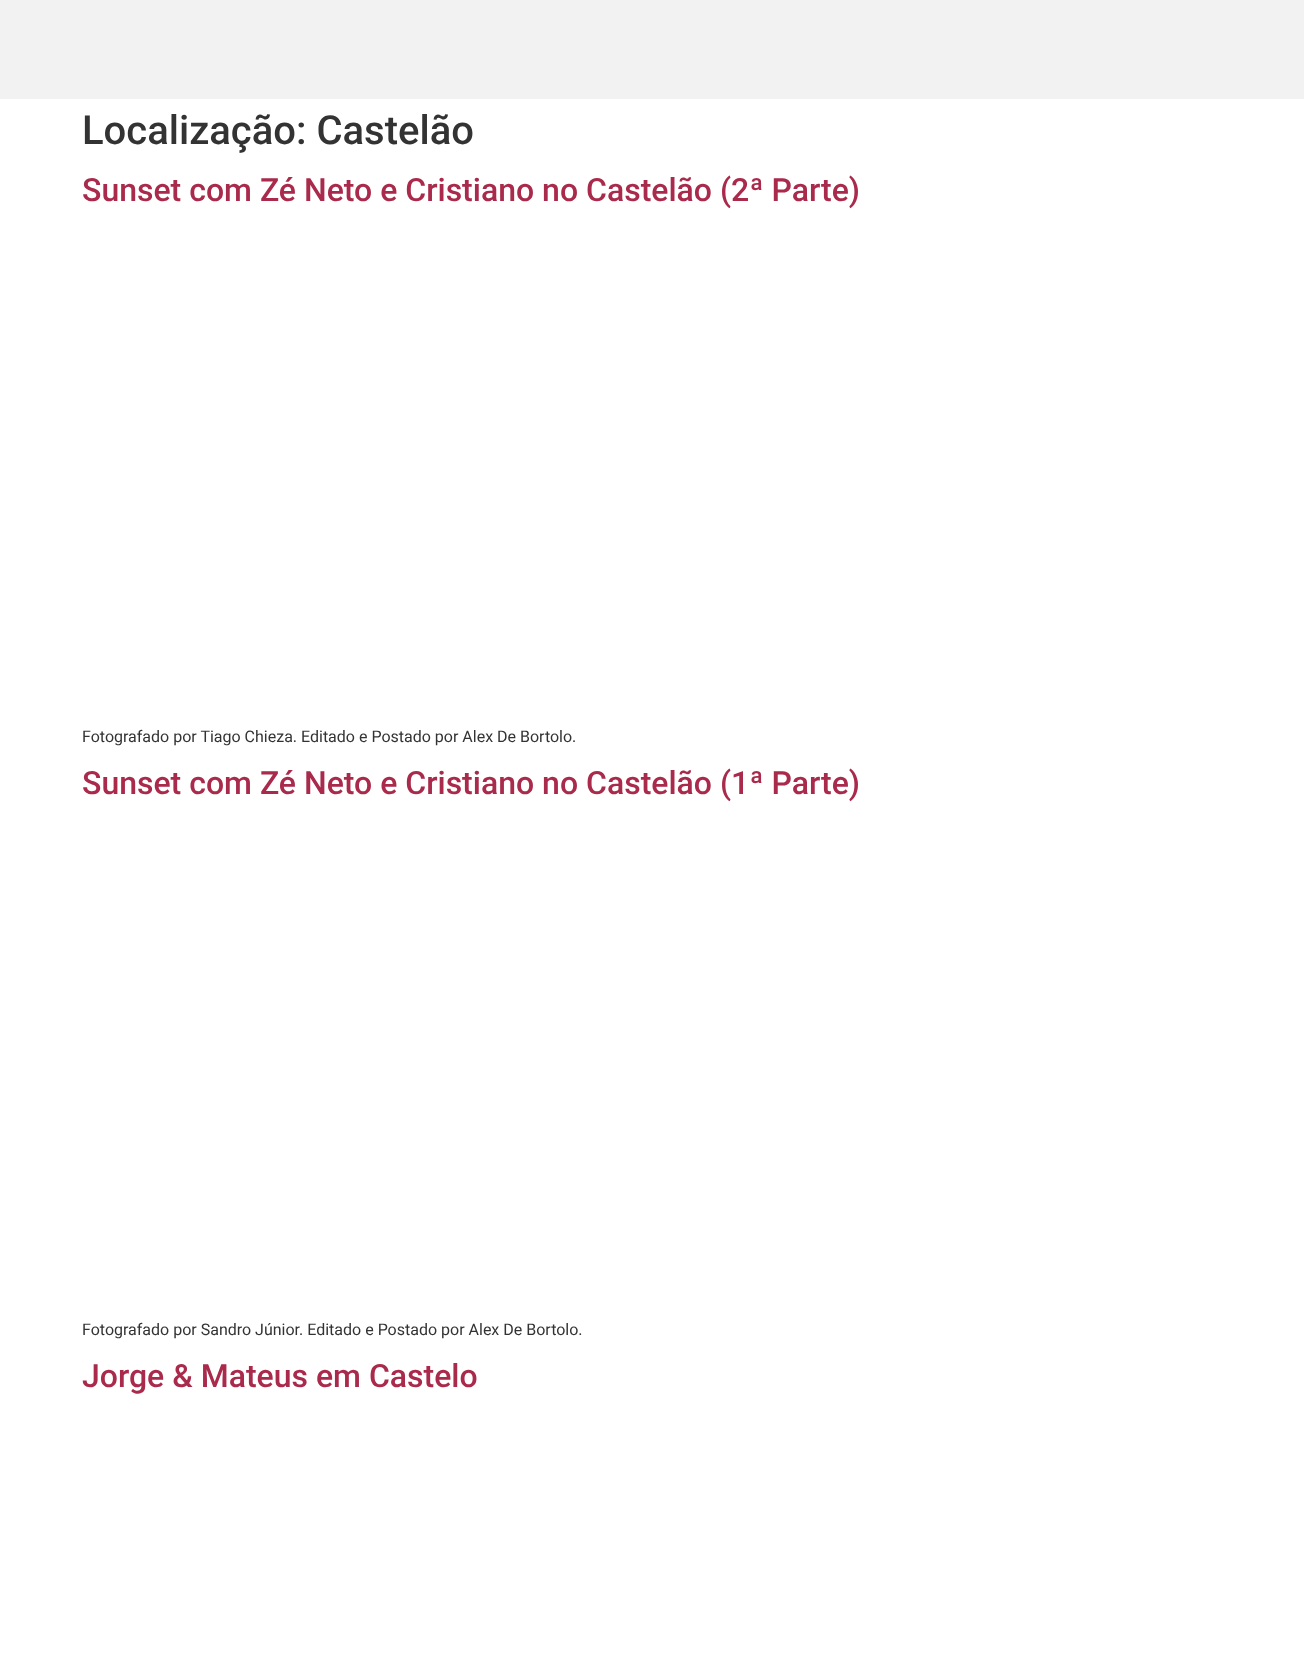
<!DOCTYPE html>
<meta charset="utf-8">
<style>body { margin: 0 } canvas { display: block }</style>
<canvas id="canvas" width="1304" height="1668"></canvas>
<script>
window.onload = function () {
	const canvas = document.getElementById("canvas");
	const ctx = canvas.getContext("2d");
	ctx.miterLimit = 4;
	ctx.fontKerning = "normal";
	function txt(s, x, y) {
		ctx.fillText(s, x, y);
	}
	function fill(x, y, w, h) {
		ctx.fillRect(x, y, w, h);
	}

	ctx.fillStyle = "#FFFFFF";
	fill(0, 0, 1304, 1668);
	ctx.fillStyle = "#F2F2F2";
	fill(0, 0, 1304, 99);
	ctx.font = "500 40px Roboto";
	ctx.fillStyle = "#333333";
	txt("Localização: Castelão", 82, 144);
	ctx.font = "500 32px Roboto";
	ctx.fillStyle = "#A92A4B";
	txt("Sunset com Zé Neto e Cristiano no Castelão (2ª Parte)", 82, 201);
	ctx.font = "16px Roboto";
	ctx.fillStyle = "#333333";
	txt("Fotografado por Tiago Chieza. Editado e Postado por Alex De Bortolo.", 82, 742);
	ctx.font = "500 32px Roboto";
	ctx.fillStyle = "#A92A4B";
	txt("Sunset com Zé Neto e Cristiano no Castelão (1ª Parte)", 82, 794);
	ctx.font = "16px Roboto";
	ctx.fillStyle = "#333333";
	txt("Fotografado por Sandro Júnior. Editado e Postado por Alex De Bortolo.", 82, 1335);
	ctx.font = "500 32px Roboto";
	ctx.fillStyle = "#A92A4B";
	txt("Jorge & Mateus em Castelo", 82, 1387);
};
</script>
